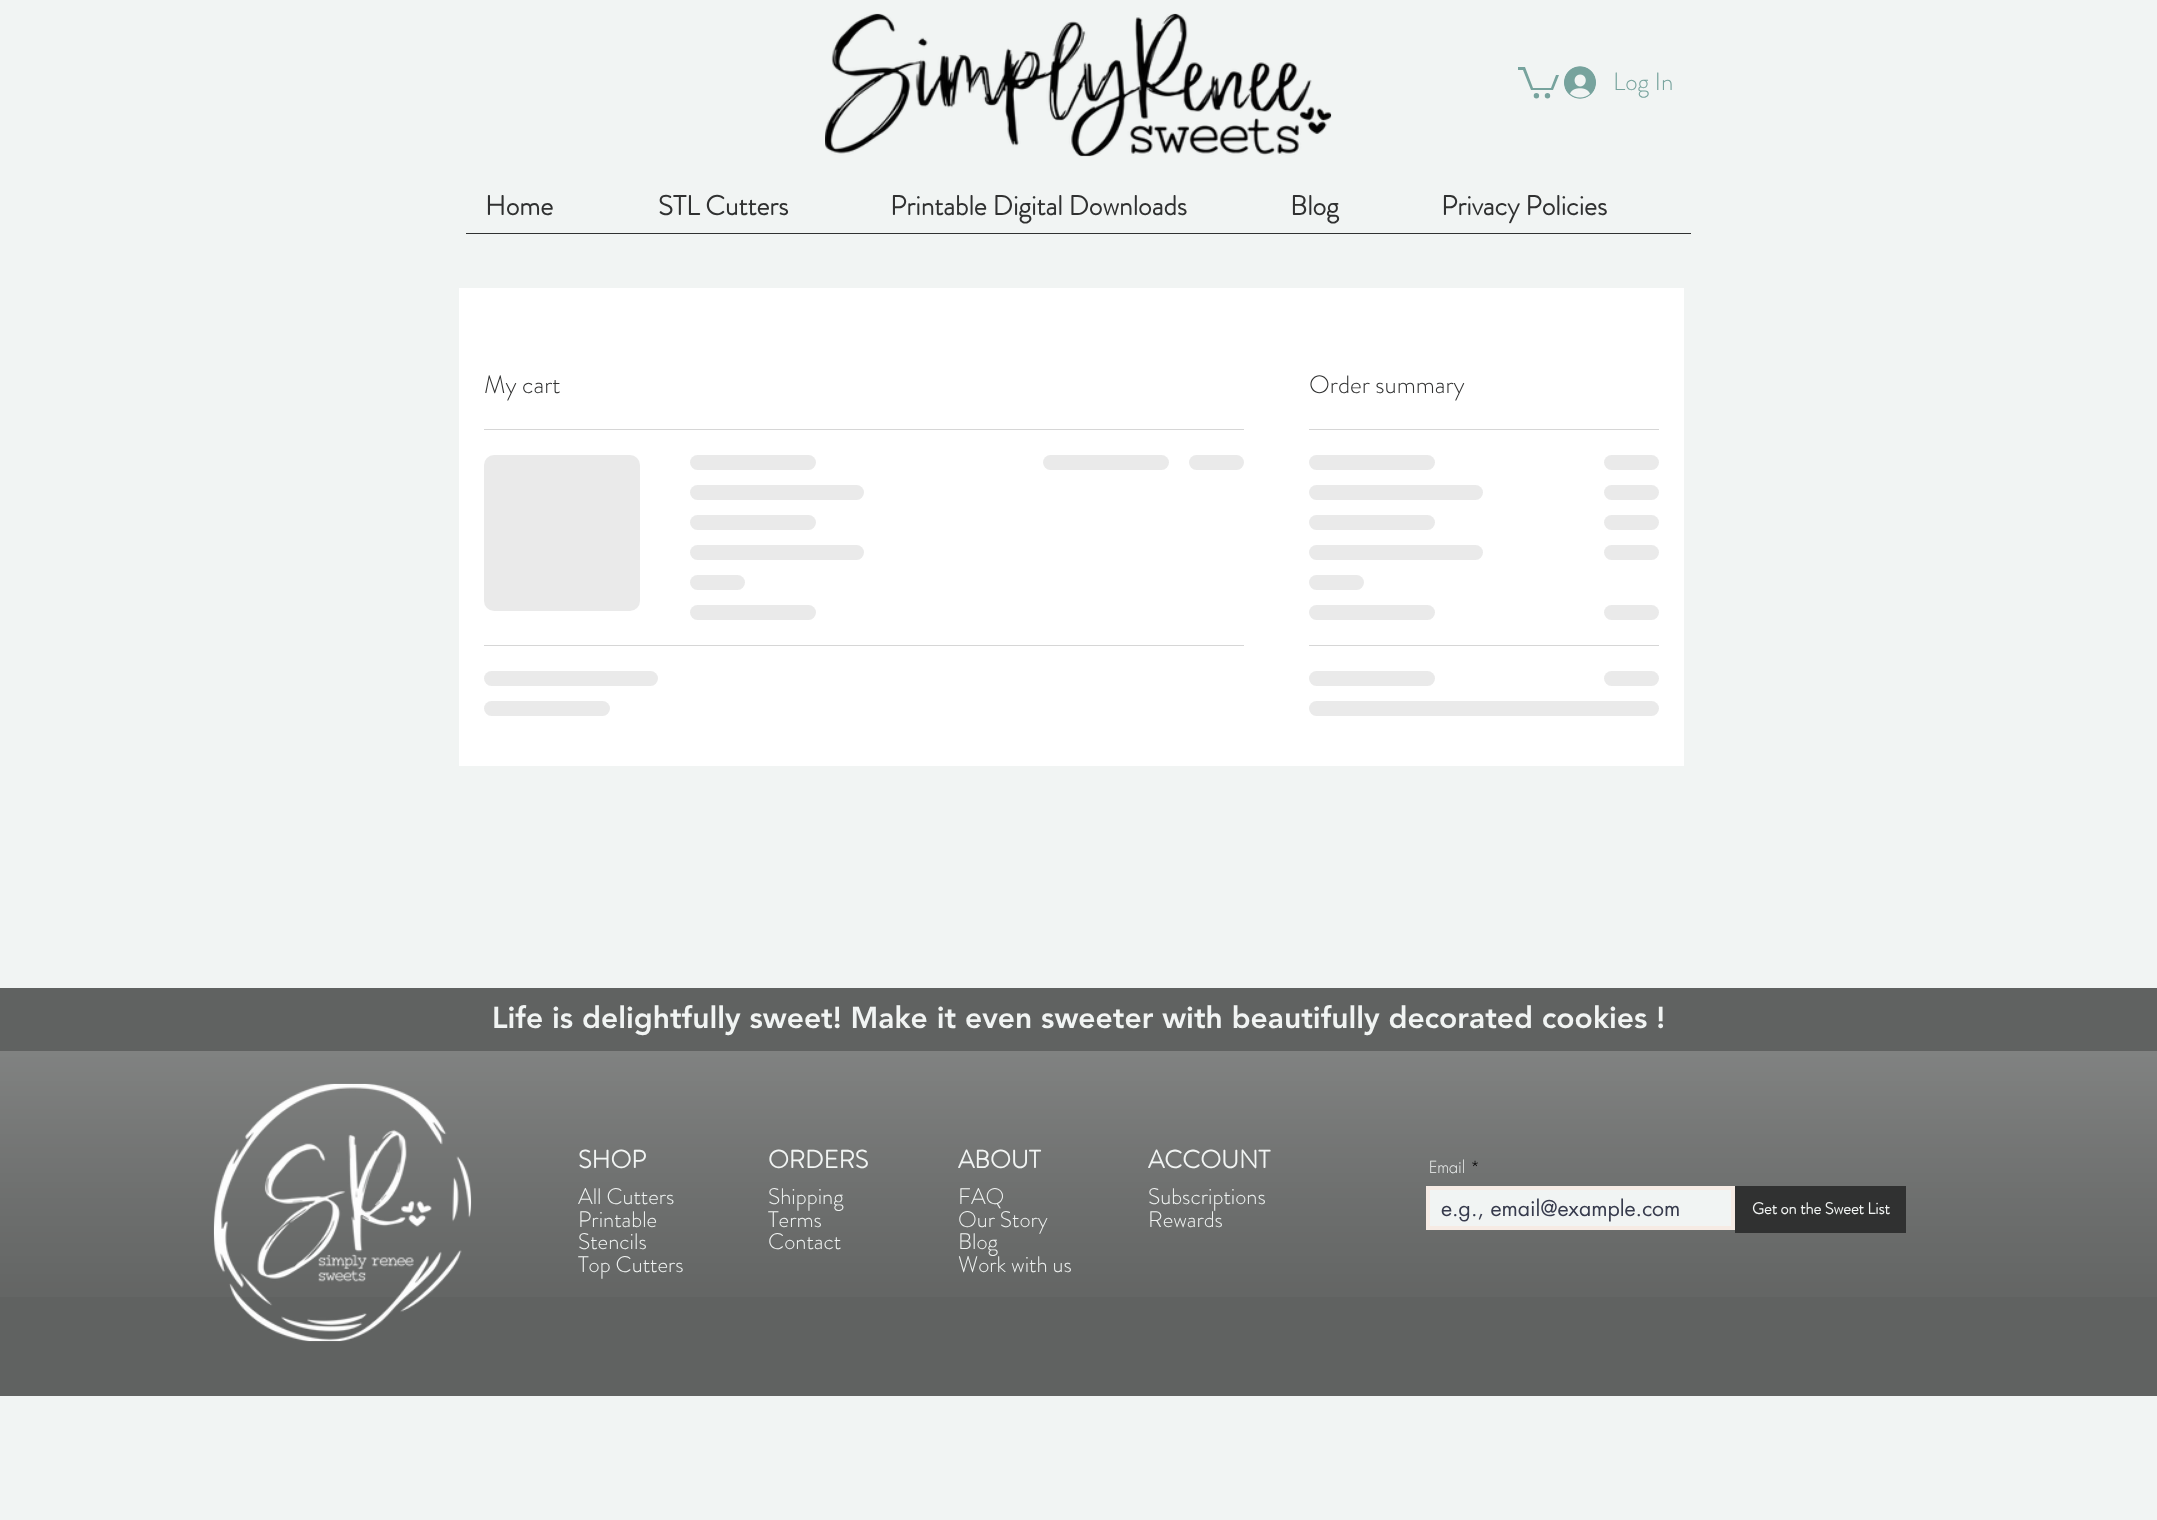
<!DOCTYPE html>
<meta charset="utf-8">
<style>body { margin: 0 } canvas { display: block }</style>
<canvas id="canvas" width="2157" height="1520"></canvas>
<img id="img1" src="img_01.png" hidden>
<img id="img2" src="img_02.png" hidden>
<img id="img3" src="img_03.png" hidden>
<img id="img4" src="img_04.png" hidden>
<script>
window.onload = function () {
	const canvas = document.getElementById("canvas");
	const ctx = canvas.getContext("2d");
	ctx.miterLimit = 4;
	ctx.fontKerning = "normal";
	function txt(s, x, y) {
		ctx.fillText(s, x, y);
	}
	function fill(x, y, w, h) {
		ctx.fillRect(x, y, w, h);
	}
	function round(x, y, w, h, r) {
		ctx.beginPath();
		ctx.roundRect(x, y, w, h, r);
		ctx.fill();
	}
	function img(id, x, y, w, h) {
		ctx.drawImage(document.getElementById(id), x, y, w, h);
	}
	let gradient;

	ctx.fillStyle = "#F1F4F3";
	fill(0, 0, 2157, 1520);
	img("img1", 825, 13, 507, 144);
	ctx.fillStyle = "#77A39D";
	ctx.beginPath();
	ctx.moveTo(1559, 75);
	ctx.lineTo(1553, 90);
	ctx.lineTo(1531, 90);
	ctx.lineTo(1523, 70);
	ctx.lineTo(1518, 70);
	ctx.lineTo(1518, 67);
	ctx.lineTo(1525, 67);
	ctx.lineTo(1533, 88);
	ctx.lineTo(1551, 88);
	ctx.lineTo(1556, 75);
	ctx.fill();
	ctx.beginPath();
	ctx.arc(1547.5, 95.7, 2.7, 0, Math.PI * 2);
	ctx.fill();
	ctx.beginPath();
	ctx.arc(1536.4, 95.7, 2.7, 0, Math.PI * 2);
	ctx.fill();
	img("img2", 1564, 66, 32, 33);
	ctx.fillStyle = "#303131";
	fill(466, 233, 1225, 1);
	ctx.fillStyle = "#FFFFFF";
	fill(459, 288, 1225, 478);
	ctx.fillStyle = "#D6D6D6";
	fill(484, 429, 760, 1);
	gradient = ctx.createLinearGradient(484, 533, 1109, 533);
	gradient.addColorStop(0.25, "#EAEAEA");
	gradient.addColorStop(0.37, "#D6D6D6");
	gradient.addColorStop(0.63, "#EAEAEA");
	ctx.fillStyle = gradient;
	round(484, 455, 156, 156, 10);
	gradient = ctx.createLinearGradient(690, 463, 1195, 463);
	gradient.addColorStop(0.25, "#EAEAEA");
	gradient.addColorStop(0.37, "#D6D6D6");
	gradient.addColorStop(0.63, "#EAEAEA");
	ctx.fillStyle = gradient;
	round(690, 455, 126, 15, 7.5);
	gradient = ctx.createLinearGradient(690, 493, 1385, 493);
	gradient.addColorStop(0.25, "#EAEAEA");
	gradient.addColorStop(0.37, "#D6D6D6");
	gradient.addColorStop(0.63, "#EAEAEA");
	ctx.fillStyle = gradient;
	round(690, 485, 174, 15, 7.5);
	gradient = ctx.createLinearGradient(690, 523, 1195, 523);
	gradient.addColorStop(0.25, "#EAEAEA");
	gradient.addColorStop(0.37, "#D6D6D6");
	gradient.addColorStop(0.63, "#EAEAEA");
	ctx.fillStyle = gradient;
	round(690, 515, 126, 15, 7.5);
	gradient = ctx.createLinearGradient(690, 553, 1385, 553);
	gradient.addColorStop(0.25, "#EAEAEA");
	gradient.addColorStop(0.37, "#D6D6D6");
	gradient.addColorStop(0.63, "#EAEAEA");
	ctx.fillStyle = gradient;
	round(690, 545, 174, 15, 7.5);
	gradient = ctx.createLinearGradient(690, 583, 910, 583);
	gradient.addColorStop(0.25, "#EAEAEA");
	gradient.addColorStop(0.37, "#D6D6D6");
	gradient.addColorStop(0.63, "#EAEAEA");
	ctx.fillStyle = gradient;
	round(690, 575, 55, 15, 7.5);
	gradient = ctx.createLinearGradient(690, 613, 1195, 613);
	gradient.addColorStop(0.25, "#EAEAEA");
	gradient.addColorStop(0.37, "#D6D6D6");
	gradient.addColorStop(0.63, "#EAEAEA");
	ctx.fillStyle = gradient;
	round(690, 605, 126, 15, 7.5);
	gradient = ctx.createLinearGradient(1043, 463, 1548, 463);
	gradient.addColorStop(0.25, "#EAEAEA");
	gradient.addColorStop(0.37, "#D6D6D6");
	gradient.addColorStop(0.63, "#EAEAEA");
	ctx.fillStyle = gradient;
	round(1043, 455, 126, 15, 7.5);
	gradient = ctx.createLinearGradient(1189, 463, 1409, 463);
	gradient.addColorStop(0.25, "#EAEAEA");
	gradient.addColorStop(0.37, "#D6D6D6");
	gradient.addColorStop(0.63, "#EAEAEA");
	ctx.fillStyle = gradient;
	round(1189, 455, 55, 15, 7.5);
	ctx.fillStyle = "#D6D6D6";
	fill(484, 645, 760, 1);
	gradient = ctx.createLinearGradient(484, 679, 1179, 679);
	gradient.addColorStop(0.25, "#EAEAEA");
	gradient.addColorStop(0.37, "#D6D6D6");
	gradient.addColorStop(0.63, "#EAEAEA");
	ctx.fillStyle = gradient;
	round(484, 671, 174, 15, 7.5);
	gradient = ctx.createLinearGradient(484, 709, 989, 709);
	gradient.addColorStop(0.25, "#EAEAEA");
	gradient.addColorStop(0.37, "#D6D6D6");
	gradient.addColorStop(0.63, "#EAEAEA");
	ctx.fillStyle = gradient;
	round(484, 701, 126, 15, 7.5);
	ctx.fillStyle = "#D6D6D6";
	fill(1309, 429, 350, 1);
	gradient = ctx.createLinearGradient(1309, 463, 1814, 463);
	gradient.addColorStop(0.25, "#EAEAEA");
	gradient.addColorStop(0.37, "#D6D6D6");
	gradient.addColorStop(0.63, "#EAEAEA");
	ctx.fillStyle = gradient;
	round(1309, 455, 126, 15, 7.5);
	gradient = ctx.createLinearGradient(1604, 463, 1824, 463);
	gradient.addColorStop(0.25, "#EAEAEA");
	gradient.addColorStop(0.37, "#D6D6D6");
	gradient.addColorStop(0.63, "#EAEAEA");
	ctx.fillStyle = gradient;
	round(1604, 455, 55, 15, 7.5);
	gradient = ctx.createLinearGradient(1309, 493, 2004, 493);
	gradient.addColorStop(0.25, "#EAEAEA");
	gradient.addColorStop(0.37, "#D6D6D6");
	gradient.addColorStop(0.63, "#EAEAEA");
	ctx.fillStyle = gradient;
	round(1309, 485, 174, 15, 7.5);
	gradient = ctx.createLinearGradient(1604, 493, 1824, 493);
	gradient.addColorStop(0.25, "#EAEAEA");
	gradient.addColorStop(0.37, "#D6D6D6");
	gradient.addColorStop(0.63, "#EAEAEA");
	ctx.fillStyle = gradient;
	round(1604, 485, 55, 15, 7.5);
	gradient = ctx.createLinearGradient(1309, 523, 1814, 523);
	gradient.addColorStop(0.25, "#EAEAEA");
	gradient.addColorStop(0.37, "#D6D6D6");
	gradient.addColorStop(0.63, "#EAEAEA");
	ctx.fillStyle = gradient;
	round(1309, 515, 126, 15, 7.5);
	gradient = ctx.createLinearGradient(1604, 523, 1824, 523);
	gradient.addColorStop(0.25, "#EAEAEA");
	gradient.addColorStop(0.37, "#D6D6D6");
	gradient.addColorStop(0.63, "#EAEAEA");
	ctx.fillStyle = gradient;
	round(1604, 515, 55, 15, 7.5);
	gradient = ctx.createLinearGradient(1309, 553, 2004, 553);
	gradient.addColorStop(0.25, "#EAEAEA");
	gradient.addColorStop(0.37, "#D6D6D6");
	gradient.addColorStop(0.63, "#EAEAEA");
	ctx.fillStyle = gradient;
	round(1309, 545, 174, 15, 7.5);
	gradient = ctx.createLinearGradient(1604, 553, 1824, 553);
	gradient.addColorStop(0.25, "#EAEAEA");
	gradient.addColorStop(0.37, "#D6D6D6");
	gradient.addColorStop(0.63, "#EAEAEA");
	ctx.fillStyle = gradient;
	round(1604, 545, 55, 15, 7.5);
	gradient = ctx.createLinearGradient(1309, 583, 1529, 583);
	gradient.addColorStop(0.25, "#EAEAEA");
	gradient.addColorStop(0.37, "#D6D6D6");
	gradient.addColorStop(0.63, "#EAEAEA");
	ctx.fillStyle = gradient;
	round(1309, 575, 55, 15, 7.5);
	gradient = ctx.createLinearGradient(1309, 613, 1814, 613);
	gradient.addColorStop(0.25, "#EAEAEA");
	gradient.addColorStop(0.37, "#D6D6D6");
	gradient.addColorStop(0.63, "#EAEAEA");
	ctx.fillStyle = gradient;
	round(1309, 605, 126, 15, 7.5);
	gradient = ctx.createLinearGradient(1604, 613, 1824, 613);
	gradient.addColorStop(0.25, "#EAEAEA");
	gradient.addColorStop(0.37, "#D6D6D6");
	gradient.addColorStop(0.63, "#EAEAEA");
	ctx.fillStyle = gradient;
	round(1604, 605, 55, 15, 7.5);
	ctx.fillStyle = "#D6D6D6";
	fill(1309, 645, 350, 1);
	gradient = ctx.createLinearGradient(1309, 679, 1814, 679);
	gradient.addColorStop(0.25, "#EAEAEA");
	gradient.addColorStop(0.37, "#D6D6D6");
	gradient.addColorStop(0.63, "#EAEAEA");
	ctx.fillStyle = gradient;
	round(1309, 671, 126, 15, 7.5);
	gradient = ctx.createLinearGradient(1604, 679, 1824, 679);
	gradient.addColorStop(0.25, "#EAEAEA");
	gradient.addColorStop(0.37, "#D6D6D6");
	gradient.addColorStop(0.63, "#EAEAEA");
	ctx.fillStyle = gradient;
	round(1604, 671, 55, 15, 7.5);
	gradient = ctx.createLinearGradient(1309, 709, 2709, 709);
	gradient.addColorStop(0.25, "#EAEAEA");
	gradient.addColorStop(0.37, "#D6D6D6");
	gradient.addColorStop(0.63, "#EAEAEA");
	ctx.fillStyle = gradient;
	round(1309, 701, 350, 15, 7.5);
	ctx.fillStyle = "#606261";
	fill(0, 988, 2157, 408);
	img("img3", 0, 1051, 2157, 246);
	img("img4", 213, 1083, 259, 259);
	ctx.fillStyle = "#F1F4F3";
	ctx.beginPath();
	ctx.rect(1428, 1188, 305, 40);
	ctx.fill();
	ctx.strokeStyle = "#F6EBE4";
	ctx.lineWidth = 4;
	ctx.stroke();
	ctx.fillStyle = "#303131";
	fill(1735, 1186, 171, 47);
	ctx.font = "300 25px 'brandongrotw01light'";
	ctx.fillStyle = "#77A39D";
	txt("Log In", 1613, 90);
	ctx.font = "bold 27.5px 'brandongrotw01light'";
	ctx.fillStyle = "#303131";
	txt("Home", 485, 215);
	txt("STL Cutters", 658, 215);
	txt("Printable Digital Downloads", 890, 215);
	txt("Blog", 1290, 215);
	txt("Privacy Policies", 1441, 215);
	ctx.font = "300 25px 'brandongrotw01light'";
	txt("My cart", 484, 393);
	txt("Order summary", 1309, 393);
	ctx.font = "900 30px 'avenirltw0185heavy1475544'";
	ctx.fillStyle = "#F1F4F3";
	txt("Life is delightfully sweet! Make it even sweeter with beautifully decorated cookies !", 492, 1028);
	ctx.font = "bold 25px 'brandongrotw01light'";
	txt("SHOP", 578, 1168);
	ctx.font = "300 22.5px 'brandongrotw01light'";
	txt("All Cutters", 578, 1204);
	txt("Printable", 578, 1227);
	txt("Stencils", 578, 1249);
	txt("Top Cutters", 578, 1272);
	ctx.font = "bold 25px 'brandongrotw01light'";
	txt("ORDERS", 768, 1168);
	ctx.font = "300 22.5px 'brandongrotw01light'";
	txt("Shipping", 768, 1204);
	txt("Terms", 768, 1227);
	txt("Contact", 768, 1249);
	ctx.font = "bold 25px 'brandongrotw01light'";
	txt("ABOUT", 958, 1168);
	ctx.font = "300 22.5px 'brandongrotw01light'";
	txt("FAQ", 958, 1204);
	txt("Our Story", 958, 1227);
	txt("Blog", 958, 1249);
	txt("Work with us", 958, 1272);
	ctx.font = "bold 25px 'brandongrotw01light'";
	txt("ACCOUNT", 1148, 1168);
	ctx.font = "300 22.5px 'brandongrotw01light'";
	txt("Subscriptions", 1148, 1204);
	txt("Rewards", 1148, 1227);
	ctx.font = "300 16.25px futura";
	txt("Email", 1429, 1173);
	ctx.fillStyle = "#000000";
	txt("*", 1470, 1173);
	ctx.font = "21.25px futura";
	ctx.fillStyle = "#373B4D";
	txt("e.g., email@example.com", 1441, 1216);
	ctx.font = "bold 16.25px 'brandongrotw01light'";
	ctx.fillStyle = "#F1F4F3";
	txt("Get on the Sweet List", 1752, 1214);
};
</script>
